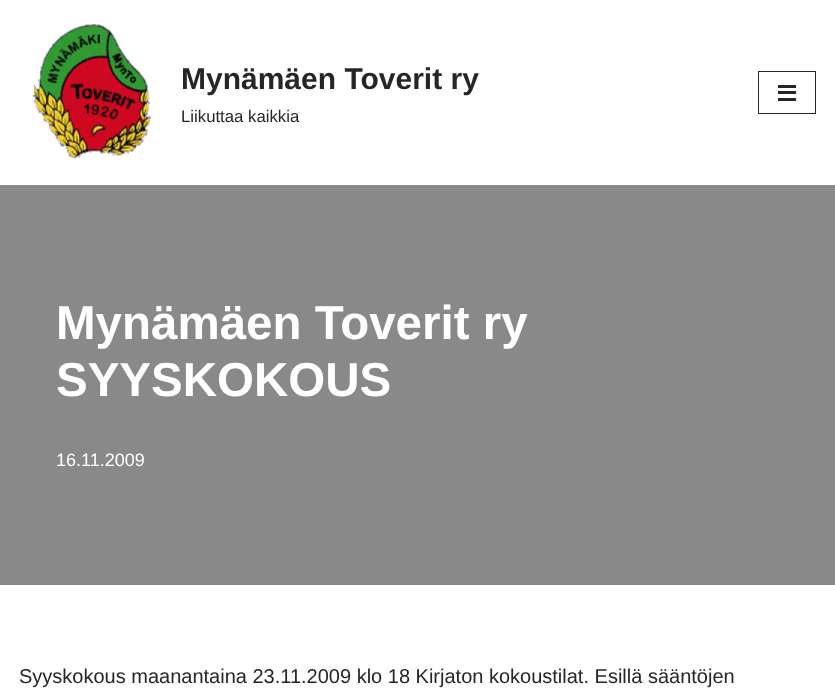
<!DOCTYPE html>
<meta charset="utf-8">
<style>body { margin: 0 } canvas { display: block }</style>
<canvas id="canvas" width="835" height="694"></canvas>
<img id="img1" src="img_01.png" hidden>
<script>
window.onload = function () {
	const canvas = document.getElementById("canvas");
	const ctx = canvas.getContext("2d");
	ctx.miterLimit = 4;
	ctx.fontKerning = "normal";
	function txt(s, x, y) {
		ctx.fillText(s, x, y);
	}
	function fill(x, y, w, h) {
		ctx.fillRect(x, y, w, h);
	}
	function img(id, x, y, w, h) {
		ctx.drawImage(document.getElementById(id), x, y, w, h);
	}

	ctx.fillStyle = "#FFFFFF";
	fill(0, 0, 835, 694);
	ctx.fillStyle = "#898989";
	fill(0, 185, 835, 400);
	img("img1", 32, 23, 119, 136);
	ctx.strokeStyle = "#272626";
	ctx.strokeRect(758.5, 71.5, 57, 42);
	ctx.fillStyle = "#272626";
	fill(778, 85, 18, 3);
	fill(778, 91, 18, 3);
	fill(778, 98, 18, 3);
	ctx.font = "bold 30px Liberation Sans";
	txt("Mynämäen Toverit ry", 181, 89);
	ctx.font = "16.75px Liberation Sans";
	txt("Liikuttaa kaikkia", 181, 122);
	ctx.font = "bold 47.5px Liberation Sans";
	ctx.fillStyle = "#FFFFFF";
	txt("Mynämäen Toverit ry", 56, 339);
	txt("SYYSKOKOUS", 56, 396);
	ctx.font = "18px Liberation Sans";
	txt("16.11.2009", 56, 466);
	ctx.font = "20px Liberation Sans";
	ctx.fillStyle = "#272626";
	txt("Syyskokous maanantaina 23.11.2009 klo 18 Kirjaton kokoustilat. Esillä sääntöjen", 19, 683);
};
</script>
